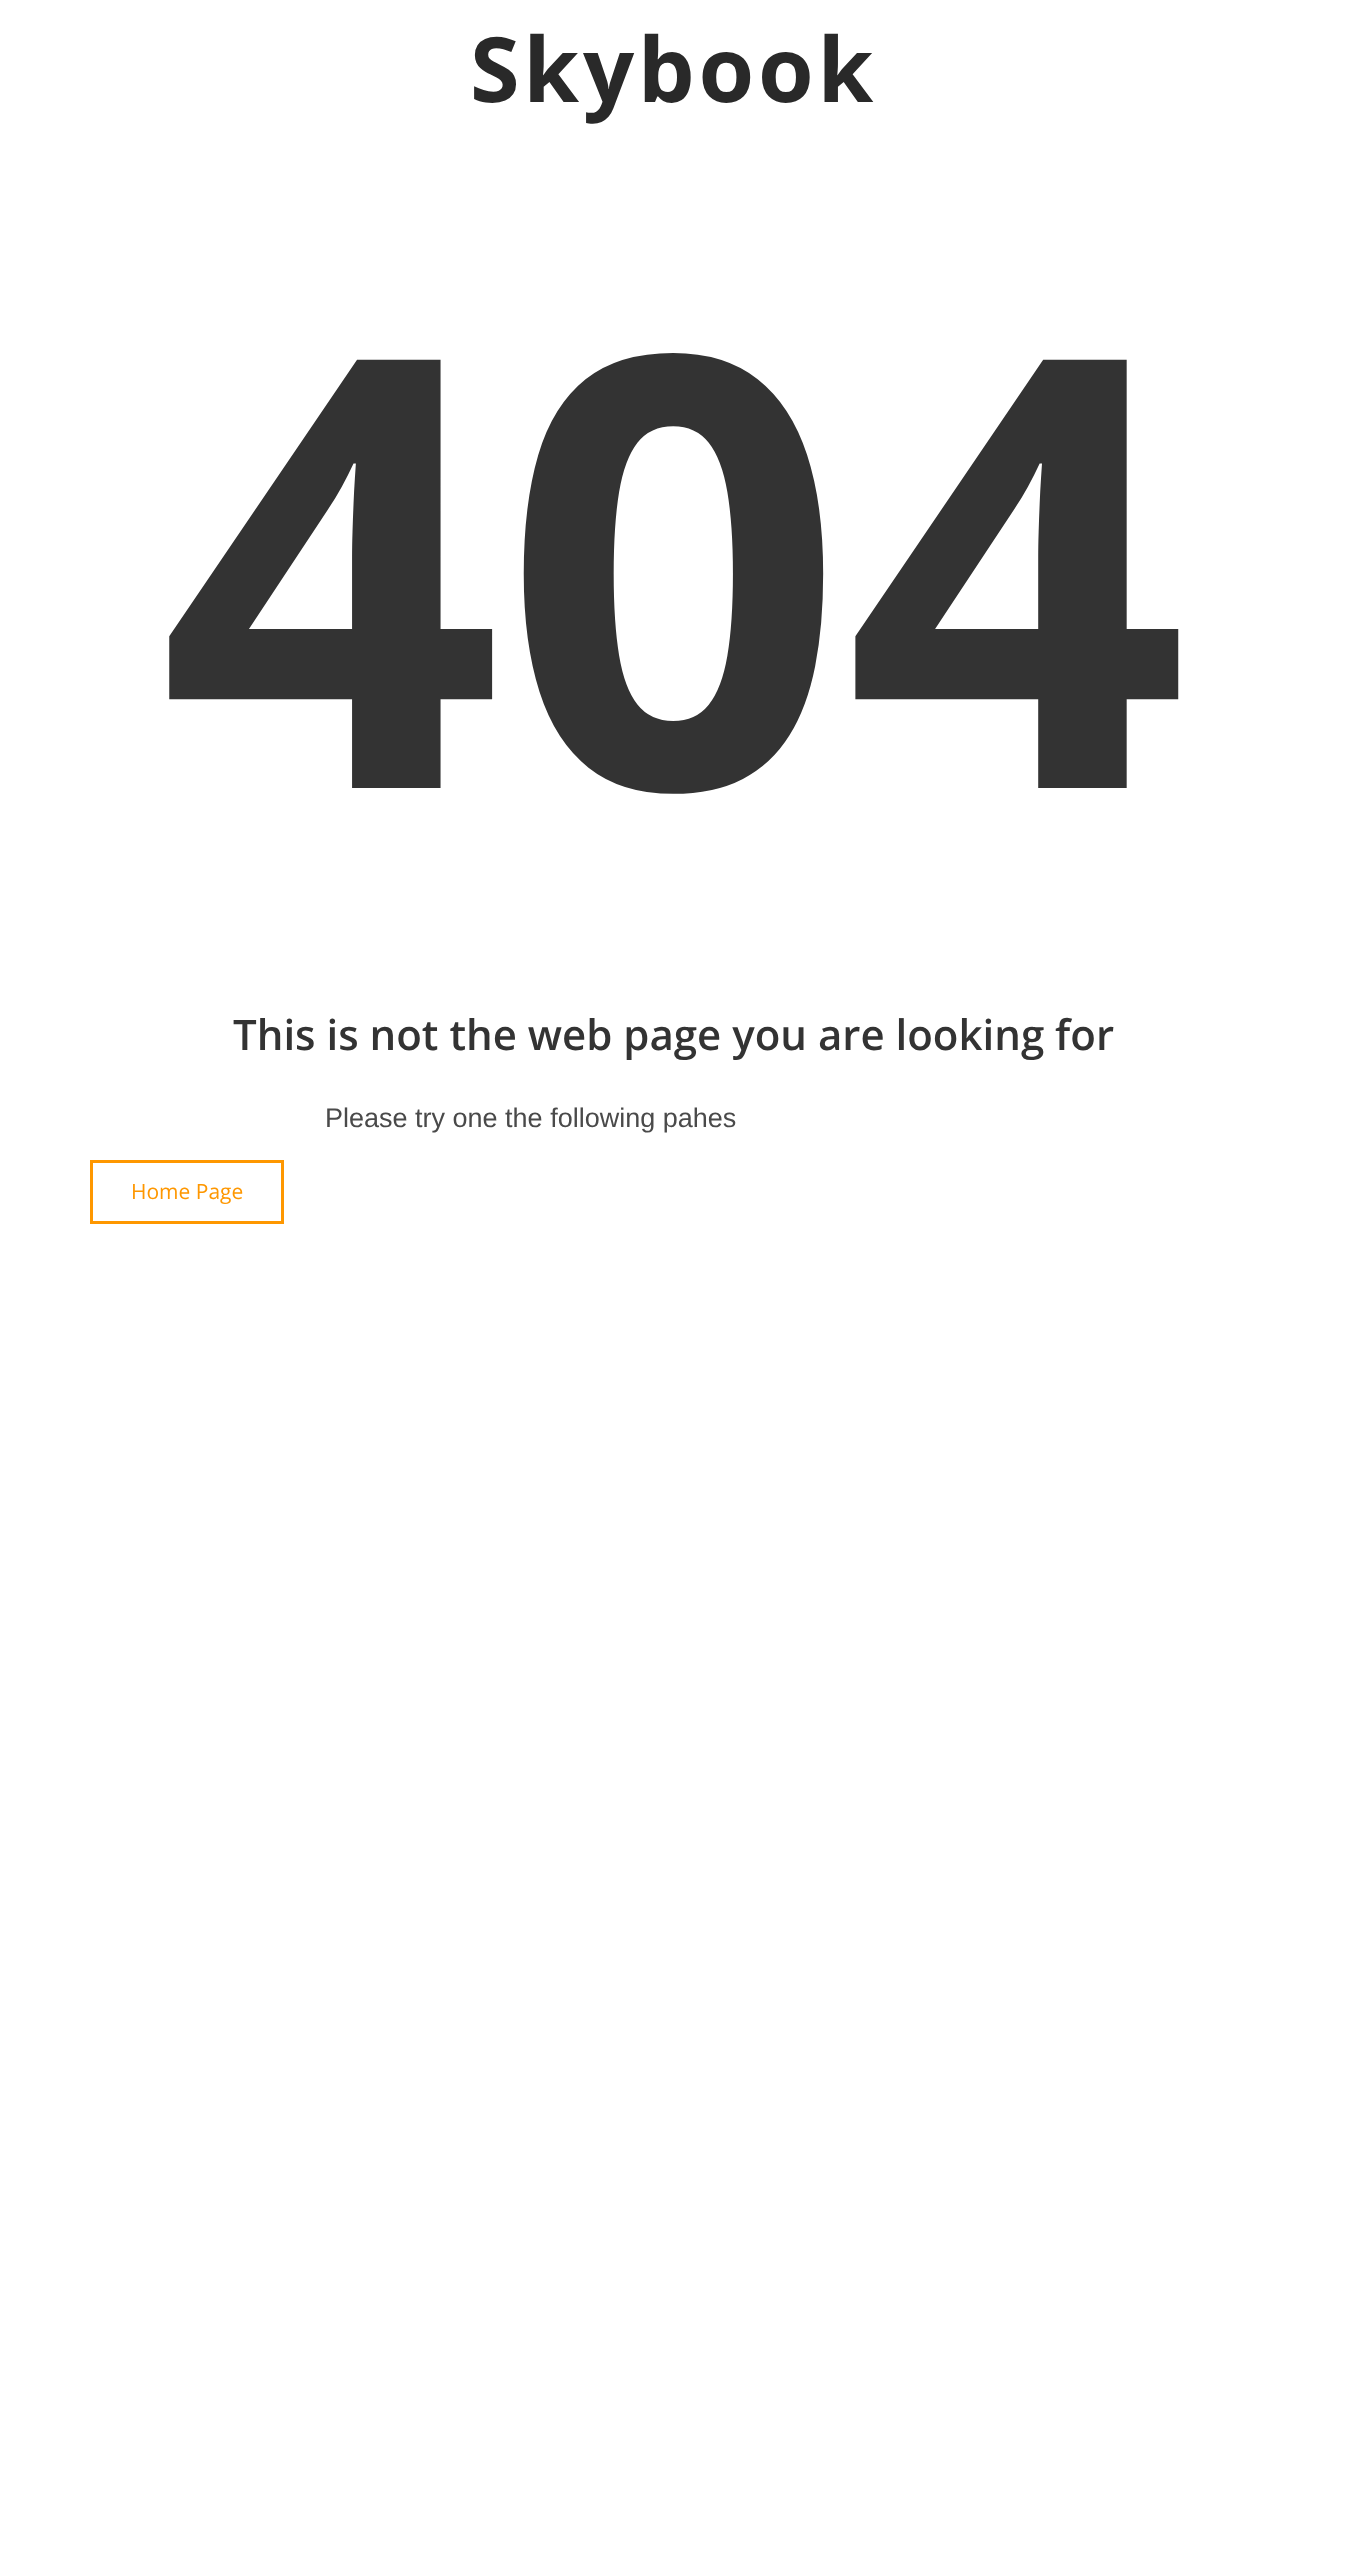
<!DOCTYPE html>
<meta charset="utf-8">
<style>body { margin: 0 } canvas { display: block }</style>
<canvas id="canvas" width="1346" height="2564"></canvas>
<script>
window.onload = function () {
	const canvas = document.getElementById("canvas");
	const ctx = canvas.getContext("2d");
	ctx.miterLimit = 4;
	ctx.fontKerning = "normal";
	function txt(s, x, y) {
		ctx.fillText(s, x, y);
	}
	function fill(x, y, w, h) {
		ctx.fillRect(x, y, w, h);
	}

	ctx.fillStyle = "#FFFFFF";
	fill(0, 0, 1346, 2564);
	ctx.strokeStyle = "#FE9700";
	ctx.lineWidth = 3;
	ctx.strokeRect(91.5, 1161.5, 191, 61);
	ctx.letterSpacing = "3.75px";
	ctx.font = "bold 90px Open Sans";
	ctx.fillStyle = "#292929";
	txt("Skybook", 470, 102);
	ctx.letterSpacing = "0px";
	ctx.font = "bold 600px Open Sans";
	ctx.fillStyle = "#333333";
	txt("404", 159, 788);
	ctx.font = "600 42px Open Sans";
	txt("This is not the web page you are looking for", 233, 1050);
	ctx.font = "27px Liberation Sans";
	ctx.fillStyle = "#4A4A4A";
	txt("Please try one the following pahes", 325, 1127);
	ctx.font = "21px Open Sans";
	ctx.fillStyle = "#FE9700";
	txt("Home Page", 131, 1199);
};
</script>
